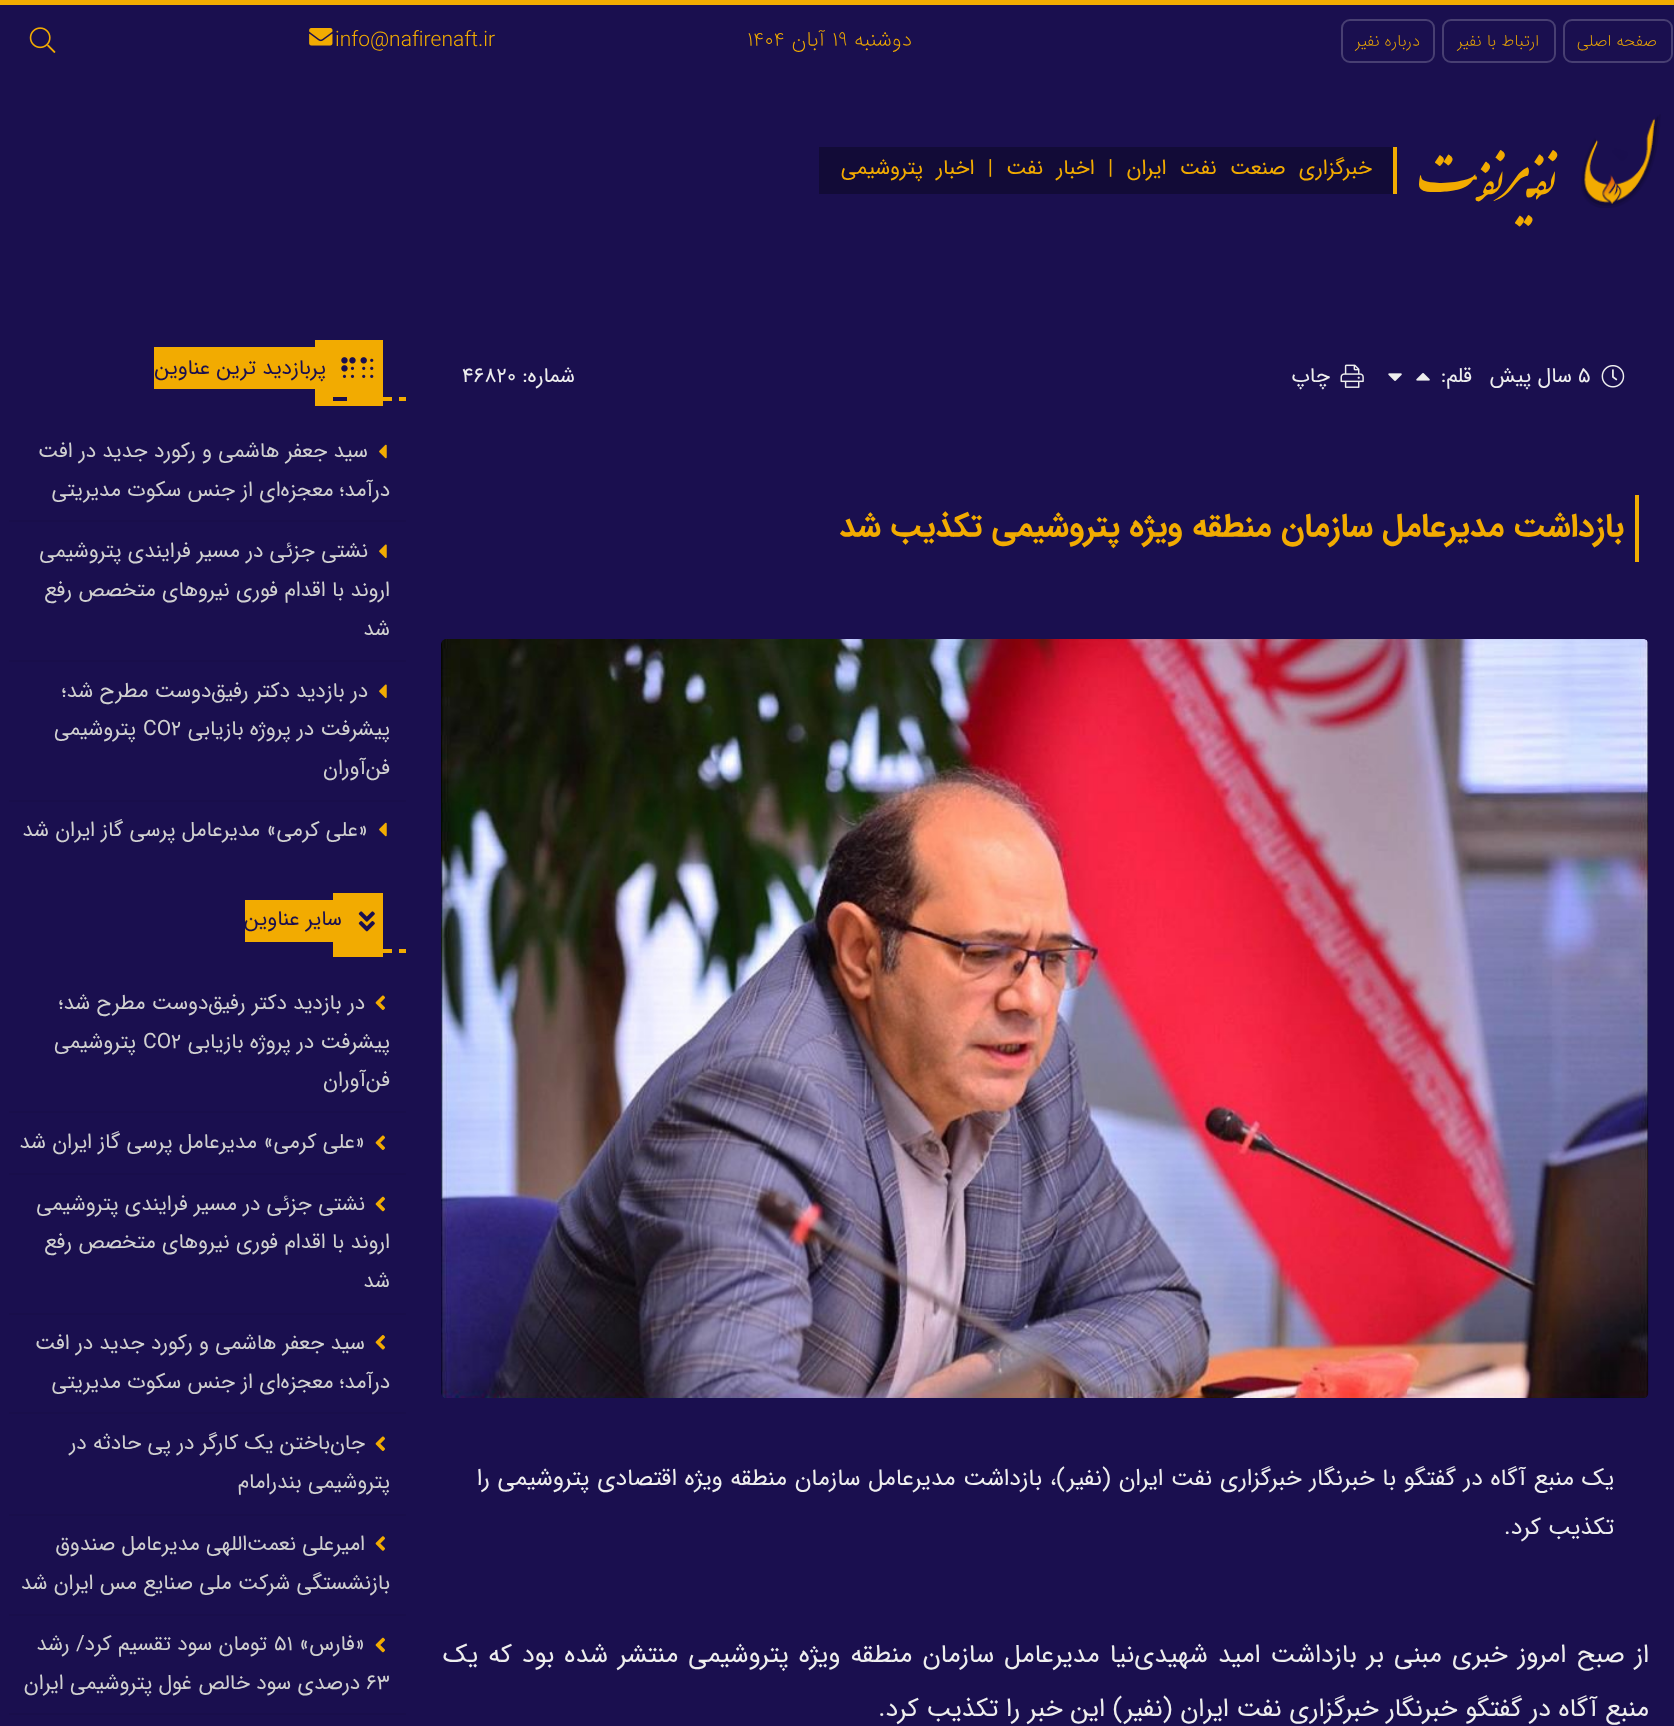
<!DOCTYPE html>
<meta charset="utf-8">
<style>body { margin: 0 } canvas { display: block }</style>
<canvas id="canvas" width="1674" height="1726"></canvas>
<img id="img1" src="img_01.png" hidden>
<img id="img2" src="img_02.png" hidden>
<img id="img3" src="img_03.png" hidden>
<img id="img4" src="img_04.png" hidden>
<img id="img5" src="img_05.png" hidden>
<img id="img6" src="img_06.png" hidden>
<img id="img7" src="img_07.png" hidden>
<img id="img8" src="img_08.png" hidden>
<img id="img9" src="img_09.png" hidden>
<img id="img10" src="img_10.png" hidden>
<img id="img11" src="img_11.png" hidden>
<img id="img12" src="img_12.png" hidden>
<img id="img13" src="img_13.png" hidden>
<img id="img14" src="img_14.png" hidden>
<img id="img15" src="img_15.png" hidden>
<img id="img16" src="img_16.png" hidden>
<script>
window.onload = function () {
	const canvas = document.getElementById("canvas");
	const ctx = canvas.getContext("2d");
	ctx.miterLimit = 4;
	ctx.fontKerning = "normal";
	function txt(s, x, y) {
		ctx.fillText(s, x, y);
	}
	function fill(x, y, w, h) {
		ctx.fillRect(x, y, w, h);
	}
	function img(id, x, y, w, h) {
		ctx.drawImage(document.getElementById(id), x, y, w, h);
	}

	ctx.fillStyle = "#1A0F4F";
	fill(0, 0, 1674, 1726);
	ctx.fillStyle = "#F2AB01";
	fill(0, 0, 1674, 5);
	ctx.beginPath();
	ctx.roundRect(1564, 20, 108, 42, 8);
	ctx.strokeStyle = "#483F72";
	ctx.lineWidth = 2;
	ctx.stroke();
	ctx.beginPath();
	ctx.roundRect(1443, 20, 112, 42, 8);
	ctx.stroke();
	ctx.beginPath();
	ctx.roundRect(1342, 20, 92, 42, 8);
	ctx.stroke();
	img("img1", 309, 28, 24, 18);
	img("img2", 29, 27, 27, 26);
	img("img3", 1581, 114, 80, 94);
	ctx.fillStyle = "#120B37";
	fill(819, 147, 574, 47);
	ctx.fillStyle = "#F2AB01";
	fill(1393, 147, 4, 47);
	img("img4", 1601, 365, 24, 23);
	img("img5", 1416, 373, 14, 8);
	img("img6", 1388, 373, 14, 8);
	img("img7", 1340, 364, 24, 24);
	fill(1635, 495, 4, 67);
	img("img8", 441, 639, 1208, 759);
	fill(315, 340, 68, 66);
	fill(154, 347, 161, 42);
	ctx.fillStyle = "#1A0F4F";
	fill(333, 397, 14, 4);
	img("img9", 341, 357, 33, 21);
	ctx.fillStyle = "#F2AB01";
	fill(399, 397, 7, 4);
	fill(383, 397, 9, 4);
	ctx.fillStyle = "#190E4B";
	fill(9, 520, 397, 2);
	img("img10", 379, 444, 8, 15);
	fill(9, 660, 397, 2);
	img("img11", 379, 544, 8, 14);
	fill(9, 800, 397, 2);
	img("img11", 379, 684, 8, 14);
	img("img10", 379, 822, 8, 15);
	ctx.fillStyle = "#F2AB01";
	fill(333, 893, 50, 64);
	fill(245, 900, 88, 42);
	img("img12", 358, 911, 17, 21);
	fill(399, 949, 7, 4);
	fill(383, 949, 9, 4);
	ctx.fillStyle = "#190E4B";
	fill(9, 1111, 397, 2);
	img("img13", 375, 995, 10, 15);
	fill(9, 1173, 397, 2);
	img("img13", 375, 1135, 10, 15);
	fill(9, 1313, 397, 2);
	img("img14", 375, 1196, 10, 16);
	fill(9, 1412, 397, 2);
	img("img15", 375, 1335, 10, 15);
	fill(9, 1514, 397, 2);
	img("img13", 375, 1436, 10, 15);
	fill(9, 1614, 397, 2);
	img("img16", 375, 1536, 10, 15);
	fill(9, 1713, 397, 2);
	img("img14", 375, 1637, 10, 16);
	ctx.direction = "rtl";
	ctx.font = "200 16.5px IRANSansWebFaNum";
	ctx.fillStyle = "#F2AB01";
	txt("صفحه اصلی", 1657, 46);
	txt("ارتباط با نفیر", 1539, 46);
	txt("درباره نفیر", 1420, 46);
	ctx.font = "200 21px IRANSansWebFaNum";
	txt("دوشنبه", 912, 46);
	ctx.direction = "ltr";
	txt("۱۹", 832, 46);
	ctx.direction = "rtl";
	txt("آبان", 825, 46);
	ctx.direction = "ltr";
	txt("۱۴۰۴", 747, 46);
	txt("info@nafirenaft.ir", 335, 46);
	ctx.direction = "rtl";
	ctx.font = "58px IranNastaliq";
	txt("نفیرنفت", 1556, 192);
	ctx.wordSpacing = "7px";
	ctx.font = "21px IRANSansWebFaNum";
	txt("خبرگزاری صنعت نفت ایران | اخبار نفت | اخبار پتروشیمی", 1372, 174);
	ctx.wordSpacing = "0px";
	ctx.direction = "ltr";
	ctx.fillStyle = "#EEEEEE";
	txt("۵", 1578, 382);
	ctx.direction = "rtl";
	txt("سال پیش", 1572, 382);
	txt("قلم:", 1472, 382);
	txt("چاپ", 1330, 382);
	txt("شماره:", 575, 382);
	ctx.direction = "ltr";
	txt("۴۶۸۲۰", 462, 382);
	ctx.direction = "rtl";
	ctx.font = "bold 32.7px IRANSansWebFaNum";
	ctx.fillStyle = "#F2AB01";
	txt("بازداشت مدیرعامل سازمان منطقه ویژه پتروشیمی تکذیب شد", 1624, 536);
	ctx.wordSpacing = "0.6px";
	ctx.font = "23.5px IRANSansWebFaNum";
	ctx.fillStyle = "#EEEEEE";
	txt("یک منبع آگاه در گفتگو با خبرنگار خبرگزاری نفت ایران (نفیر)، بازداشت مدیرعامل سازمان منطقه ویژه اقتصادی پتروشیمی را", 1614, 1485);
	ctx.wordSpacing = "0px";
	txt("تکذیب کرد.", 1614, 1534);
	ctx.wordSpacing = "2.4px";
	ctx.font = "25.65px IRANSansWebFaNum";
	txt("از صبح امروز خبری مبنی بر بازداشت امید شهیدی‌نیا‌ مدیرعامل سازمان منطقه ویژه پتروشیمی منتشر شده بود که یک", 1649, 1662);
	ctx.wordSpacing = "0px";
	txt("منبع آگاه در گفتگو خبرنگار خبرگزاری نفت ایران (نفیر) این خبر را تکذیب کرد.", 1649, 1716);
	ctx.font = "21px IRANSansWebFaNum";
	ctx.fillStyle = "#1A0F4F";
	txt("پربازدید ترین عناوین", 326, 374);
	ctx.fillStyle = "#D0D0D0";
	txt("سید جعفر هاشمی و رکورد جدید در افت", 368, 457);
	txt("درآمد؛ معجزه‌ای از جنس سکوت مدیریتی", 390, 496);
	txt("نشتی جزئی در مسیر فرایندی پتروشیمی", 368, 557);
	txt("اروند با اقدام فوری نیروهای متخصص رفع", 390, 596);
	txt("شد", 390, 635);
	txt("در بازدید دکتر رفیق‌دوست مطرح شد؛", 368, 697);
	txt("پیشرفت در پروژه بازیابی", 390, 735);
	ctx.direction = "ltr";
	txt("CO2", 143, 735);
	ctx.direction = "rtl";
	txt("پتروشیمی", 136, 735);
	txt("فن‌آوران", 390, 774);
	txt("«علی کرمی» مدیرعامل پرسی گاز ایران شد", 368, 836);
	ctx.fillStyle = "#1A0F4F";
	txt("سایر عناوین", 342, 925);
	ctx.fillStyle = "#D0D0D0";
	txt("در بازدید دکتر رفیق‌دوست مطرح شد؛", 365, 1009);
	txt("پیشرفت در پروژه بازیابی", 390, 1048);
	ctx.direction = "ltr";
	txt("CO2", 143, 1048);
	ctx.direction = "rtl";
	txt("پتروشیمی", 136, 1048);
	txt("فن‌آوران", 390, 1086);
	txt("«علی کرمی» مدیرعامل پرسی گاز ایران شد", 365, 1148);
	txt("نشتی جزئی در مسیر فرایندی پتروشیمی", 365, 1210);
	txt("اروند با اقدام فوری نیروهای متخصص رفع", 390, 1248);
	txt("شد", 390, 1287);
	txt("سید جعفر هاشمی و رکورد جدید در افت", 365, 1349);
	txt("درآمد؛ معجزه‌ای از جنس سکوت مدیریتی", 390, 1388);
	txt("جان‌باختن یک کارگر در پی حادثه در", 365, 1449);
	txt("پتروشیمی بندرامام", 390, 1488);
	txt("امیرعلی نعمت‌اللهی مدیرعامل صندوق", 365, 1550);
	txt("بازنشستگی شرکت ملی صنایع مس ایران شد", 390, 1589);
	txt("«فارس»", 365, 1650);
	ctx.direction = "ltr";
	txt("۵۱", 274, 1650);
	ctx.direction = "rtl";
	txt("تومان سود تقسیم کرد/ رشد", 267, 1650);
	ctx.direction = "ltr";
	txt("۶۳", 366, 1689);
	ctx.direction = "rtl";
	txt("درصدی سود خالص غول پتروشیمی ایران", 360, 1689);
};
</script>
